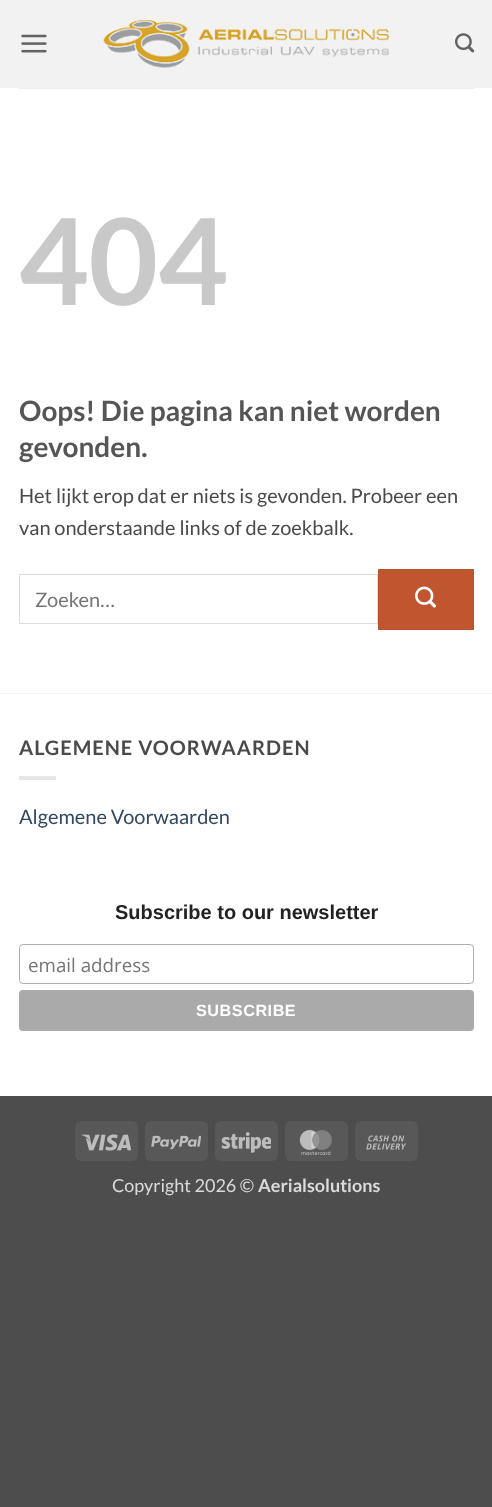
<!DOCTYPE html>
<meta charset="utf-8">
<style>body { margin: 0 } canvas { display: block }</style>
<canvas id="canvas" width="492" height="1507"></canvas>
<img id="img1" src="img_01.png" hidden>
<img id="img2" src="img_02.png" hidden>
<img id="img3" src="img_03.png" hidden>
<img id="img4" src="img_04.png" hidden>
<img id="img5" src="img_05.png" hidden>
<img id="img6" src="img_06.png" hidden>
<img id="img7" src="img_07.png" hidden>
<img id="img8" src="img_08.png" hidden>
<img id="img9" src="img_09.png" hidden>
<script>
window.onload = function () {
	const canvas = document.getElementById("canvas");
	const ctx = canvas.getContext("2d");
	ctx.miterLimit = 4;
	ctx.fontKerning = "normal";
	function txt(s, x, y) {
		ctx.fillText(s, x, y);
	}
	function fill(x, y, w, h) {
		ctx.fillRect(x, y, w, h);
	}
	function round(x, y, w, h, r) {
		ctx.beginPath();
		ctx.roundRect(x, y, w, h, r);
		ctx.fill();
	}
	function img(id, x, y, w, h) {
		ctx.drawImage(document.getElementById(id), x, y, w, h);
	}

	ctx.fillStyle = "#4D4D4D";
	fill(0, 0, 492, 1507);
	ctx.fillStyle = "#FFFFFF";
	fill(0, 88, 492, 1008);
	ctx.fillStyle = "#F2F2F2";
	fill(0, 0, 492, 88);
	img("img1", 21, 34, 26, 19);
	img("img2", 103, 20, 286, 48);
	img("img3", 455, 33, 20, 20);
	ctx.fillStyle = "#EDEDED";
	fill(19, 88, 455, 1);
	ctx.strokeStyle = "#DDDDDD";
	ctx.strokeRect(19.5, 574.5, 358, 49);
	ctx.fillStyle = "#C05530";
	ctx.beginPath();
	ctx.rect(378.5, 569.5, 95, 60);
	ctx.fill();
	ctx.strokeStyle = "#B6512E";
	ctx.stroke();
	img("img4", 415, 586, 21, 22);
	ctx.fillStyle = "#F2F2F2";
	fill(0, 693, 492, 1);
	ctx.fillStyle = "#E6E6E6";
	fill(19, 776, 37, 4);
	ctx.beginPath();
	ctx.roundRect(19.5, 944.5, 454, 39, 3.5);
	ctx.strokeStyle = "#ABB0B2";
	ctx.stroke();
	ctx.fillStyle = "#AAAAAA";
	round(19, 990, 455, 41, 4);
	ctx.fillStyle = "#585858";
	round(75, 1121, 63, 40, 6);
	img("img5", 81, 1134, 50, 17);
	round(145, 1121, 63, 40, 6);
	img("img6", 151, 1135, 50, 15);
	round(215, 1121, 63, 40, 6);
	img("img7", 221, 1132, 50, 21);
	round(285, 1121, 63, 40, 6);
	img("img8", 299, 1130, 33, 25);
	round(355, 1121, 63, 40, 6);
	img("img9", 366, 1135, 40, 15);
	ctx.font = "bold 120px Lato";
	ctx.fillStyle = "#C9C9C9";
	txt("404", 19, 305);
	ctx.font = "bold 28px Lato";
	ctx.fillStyle = "#555555";
	txt("Oops! Die pagina kan niet worden", 19, 421);
	txt("gevonden.", 19, 457);
	ctx.font = "20px Lato";
	ctx.fillStyle = "#4A4A4A";
	txt("Het lijkt erop dat er niets is gevonden. Probeer een", 19, 503);
	txt("van onderstaande links of de zoekbalk.", 19, 535);
	ctx.fillStyle = "#757575";
	txt("Zoeken…", 35, 607);
	ctx.letterSpacing = "1px";
	ctx.font = "bold 20px Lato";
	ctx.fillStyle = "#4A4A4A";
	txt("ALGEMENE VOORWAARDEN", 19, 755);
	ctx.letterSpacing = "0px";
	ctx.font = "20px Lato";
	ctx.fillStyle = "#334862";
	txt("Algemene Voorwaarden", 19, 824);
	ctx.font = "bold 20px Liberation Sans";
	ctx.fillStyle = "#222222";
	txt("Subscribe to our newsletter", 115, 919);
	ctx.font = "18.75px Open Sans";
	ctx.fillStyle = "#757575";
	txt("email address", 28, 972);
	ctx.letterSpacing = "0.5px";
	ctx.font = "bold 16.25px Liberation Sans";
	ctx.fillStyle = "#FFFFFF";
	txt("SUBSCRIBE", 196, 1016);
	ctx.letterSpacing = "0px";
	ctx.font = "18px Lato";
	ctx.fillStyle = "#DBDBDB";
	txt("Copyright 2026 ©", 112, 1192);
	ctx.font = "bold 18px Lato";
	txt("Aerialsolutions", 258, 1192);
};
</script>
